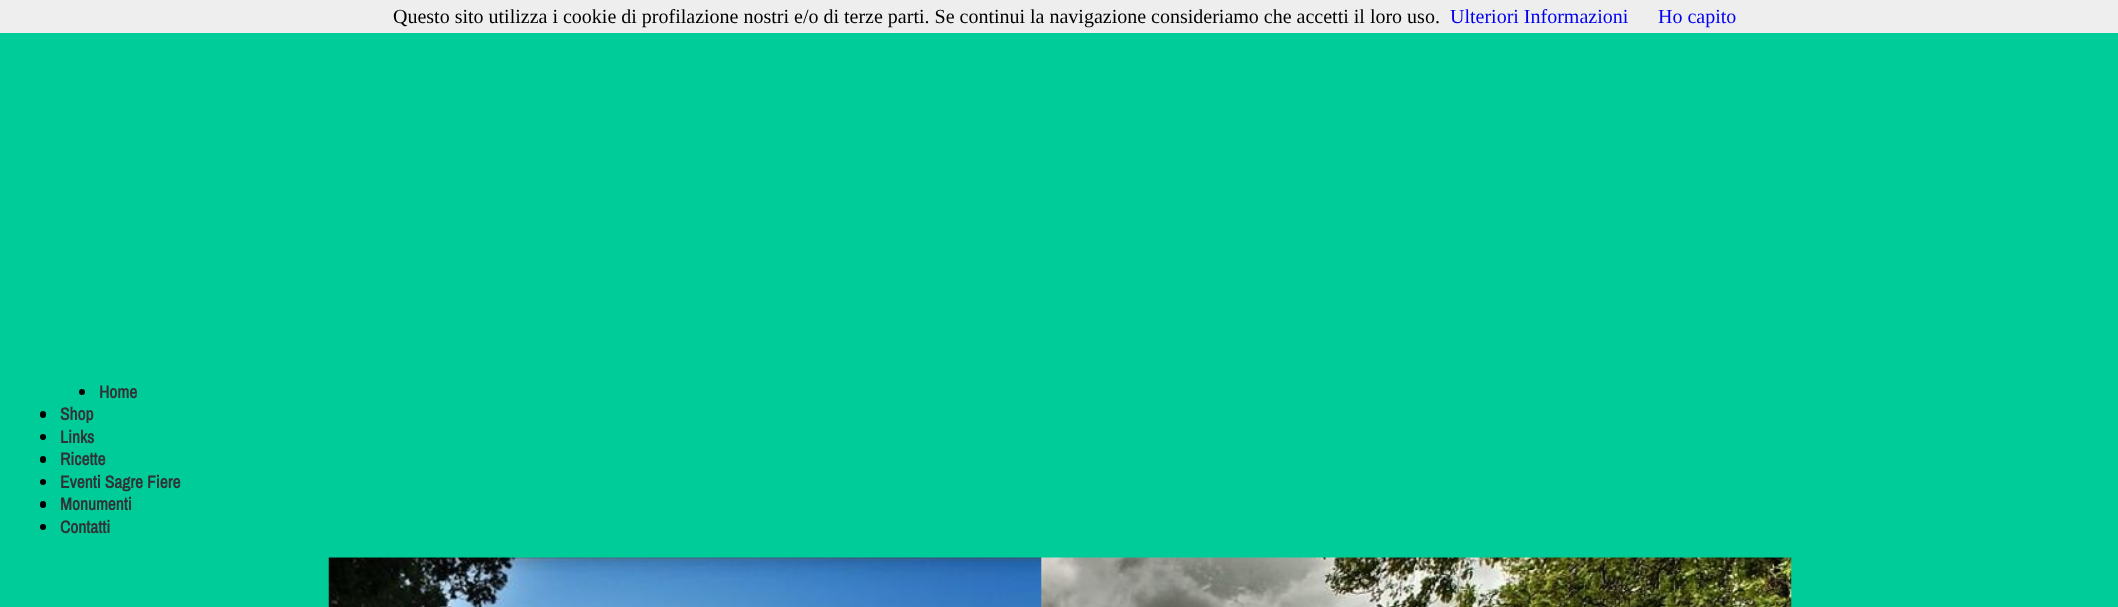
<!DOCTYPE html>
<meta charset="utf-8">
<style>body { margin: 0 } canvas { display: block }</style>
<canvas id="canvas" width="2118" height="607"></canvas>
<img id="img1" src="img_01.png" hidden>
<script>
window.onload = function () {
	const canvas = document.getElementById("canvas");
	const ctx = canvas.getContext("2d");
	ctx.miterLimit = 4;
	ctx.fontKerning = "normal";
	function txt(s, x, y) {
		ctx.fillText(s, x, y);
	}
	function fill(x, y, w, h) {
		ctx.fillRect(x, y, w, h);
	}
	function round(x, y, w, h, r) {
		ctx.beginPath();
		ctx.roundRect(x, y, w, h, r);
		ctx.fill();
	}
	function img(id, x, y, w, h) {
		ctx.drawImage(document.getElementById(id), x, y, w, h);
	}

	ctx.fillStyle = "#00CC99";
	fill(0, 0, 2118, 607);
	ctx.fillStyle = "#EEEEEE";
	fill(0, 0, 2118, 33);
	ctx.fillStyle = "#000000";
	ctx.beginPath();
	ctx.arc(82, 392, 3, 0, Math.PI * 2);
	ctx.fill();
	round(40, 411, 6, 7, 3);
	ctx.beginPath();
	ctx.arc(43, 437, 3, 0, Math.PI * 2);
	ctx.fill();
	round(40, 456, 6, 7, 3);
	ctx.beginPath();
	ctx.arc(43, 482, 3, 0, Math.PI * 2);
	ctx.fill();
	round(40, 501, 6, 7, 3);
	ctx.beginPath();
	ctx.arc(43, 527, 3, 0, Math.PI * 2);
	ctx.fill();
	img("img1", 328, 557, 1464, 50);
	ctx.font = "20px Liberation Serif";
	txt("Questo sito utilizza i cookie di profilazione nostri e/o di terze parti. Se continui la navigazione consideriamo che accetti il loro uso.", 393, 23);
	ctx.fillStyle = "#0000EE";
	txt("Ulteriori Informazioni", 1450, 23);
	txt("Ho capito", 1658, 23);
	ctx.font = "bold 17.5px Archivo Narrow";
	ctx.fillStyle = "#303336";
	txt("Home", 99, 398);
	txt("Shop", 60, 420);
	txt("Links", 60, 443);
	txt("Ricette", 60, 465);
	txt("Eventi Sagre Fiere", 60, 488);
	txt("Monumenti", 60, 510);
	txt("Contatti", 60, 533);
};
</script>
